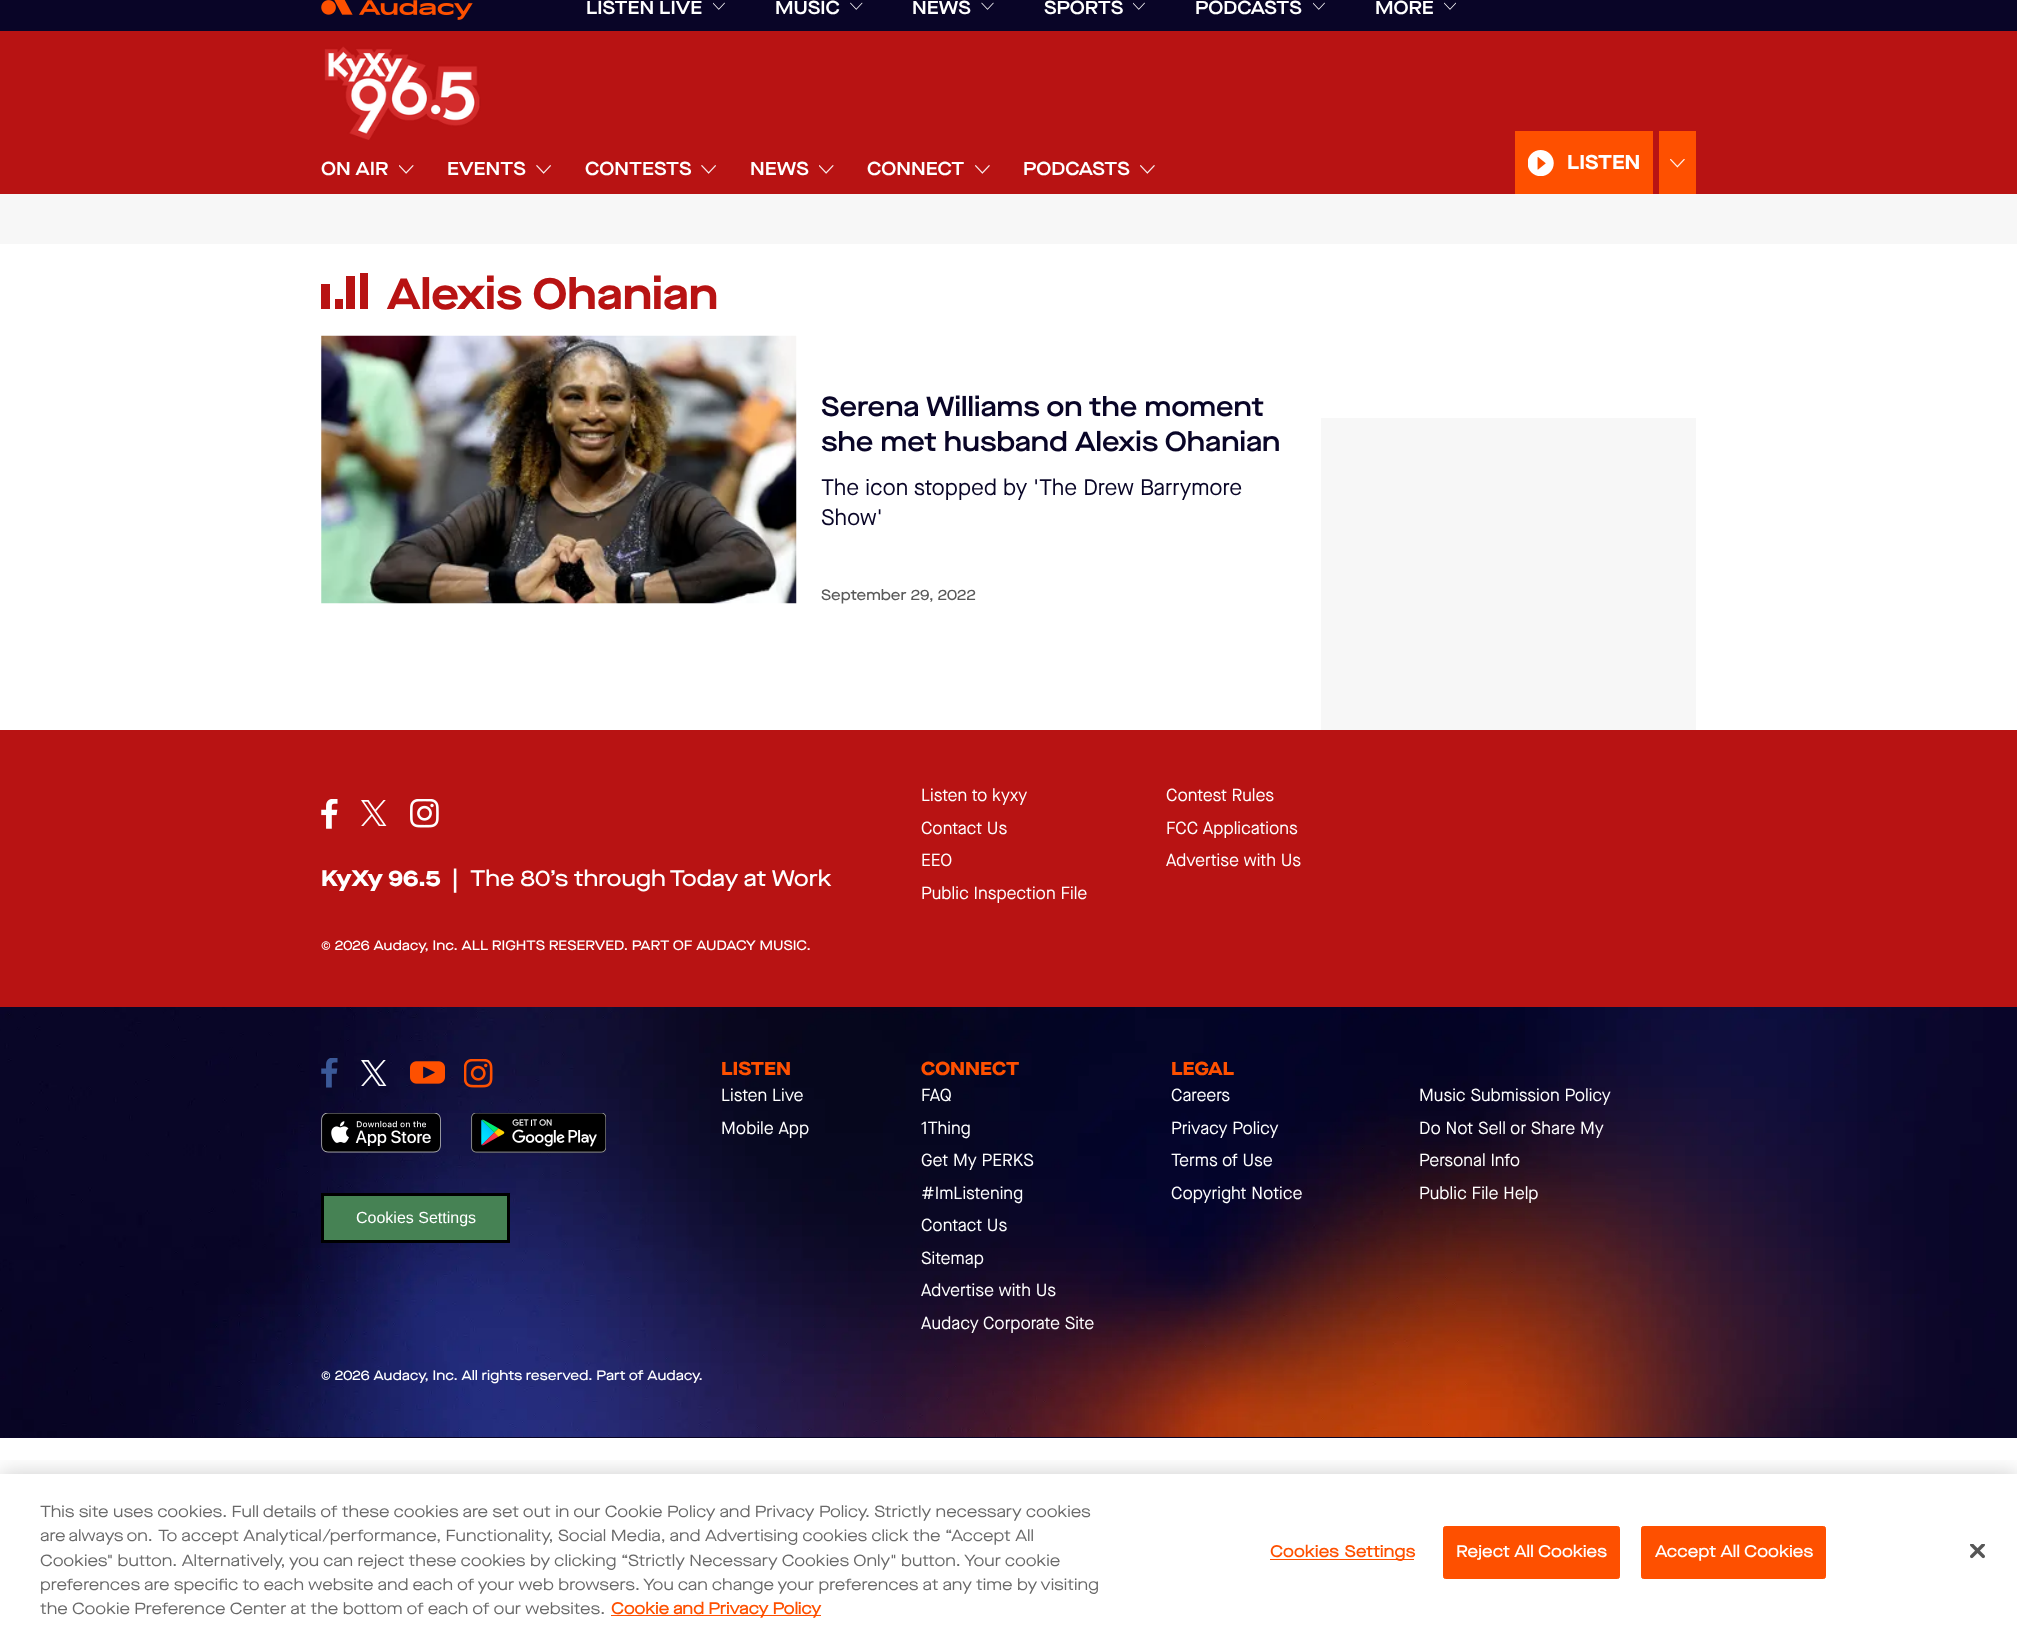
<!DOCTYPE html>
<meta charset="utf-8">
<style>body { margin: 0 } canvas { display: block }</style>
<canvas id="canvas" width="2017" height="1633"></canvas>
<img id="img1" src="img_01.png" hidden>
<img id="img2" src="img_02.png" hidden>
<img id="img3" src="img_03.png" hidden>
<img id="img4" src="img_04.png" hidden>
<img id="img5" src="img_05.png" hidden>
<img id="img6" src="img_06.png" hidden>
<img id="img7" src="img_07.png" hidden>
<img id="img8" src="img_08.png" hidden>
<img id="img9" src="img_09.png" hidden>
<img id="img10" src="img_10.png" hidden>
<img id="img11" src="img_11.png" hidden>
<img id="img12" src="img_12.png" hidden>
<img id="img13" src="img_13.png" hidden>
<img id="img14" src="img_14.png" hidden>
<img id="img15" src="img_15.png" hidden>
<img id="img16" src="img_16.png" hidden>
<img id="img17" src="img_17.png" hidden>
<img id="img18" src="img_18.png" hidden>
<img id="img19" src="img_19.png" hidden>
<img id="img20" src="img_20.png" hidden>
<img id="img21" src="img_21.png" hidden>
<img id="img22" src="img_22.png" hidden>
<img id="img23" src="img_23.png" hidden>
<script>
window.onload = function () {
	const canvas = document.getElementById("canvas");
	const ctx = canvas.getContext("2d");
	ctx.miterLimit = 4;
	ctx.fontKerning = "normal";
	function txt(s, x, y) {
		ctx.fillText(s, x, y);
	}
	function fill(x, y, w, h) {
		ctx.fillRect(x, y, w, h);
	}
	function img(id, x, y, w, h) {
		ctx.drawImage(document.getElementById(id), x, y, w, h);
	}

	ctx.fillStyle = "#FFFFFF";
	fill(0, 0, 2017, 1633);
	ctx.fillStyle = "#090527";
	fill(0, 0, 2017, 31);
	img("img1", 321, 0, 152, 20);
	img("img2", 713, 2, 12, 8);
	img("img3", 850, 2, 13, 8);
	img("img4", 981, 2, 13, 8);
	img("img2", 1133, 2, 12, 8);
	img("img2", 1313, 2, 12, 8);
	img("img5", 1444, 2, 12, 8);
	ctx.fillStyle = "#B81313";
	fill(0, 31, 2017, 163);
	img("img6", 324, 46, 157, 94);
	img("img7", 399, 165, 15, 9);
	img("img8", 536, 165, 15, 9);
	img("img8", 701, 165, 15, 9);
	img("img7", 819, 165, 15, 9);
	img("img9", 975, 165, 15, 9);
	img("img9", 1140, 165, 15, 9);
	ctx.fillStyle = "#FE5000";
	fill(1515, 131, 138, 63);
	img("img10", 1528, 150, 26, 26);
	fill(1659, 131, 37, 63);
	img("img11", 1670, 159, 15, 9);
	ctx.fillStyle = "#F7F7F7";
	fill(0, 194, 2017, 50);
	ctx.fillStyle = "#B81313";
	fill(321, 284, 9, 25);
	fill(335, 299, 8, 10);
	fill(346, 276, 9, 33);
	fill(360, 273, 8, 36);
	img("img12", 321, 335, 476, 269);
	ctx.fillStyle = "#F7F7F7";
	fill(1321, 418, 375, 312);
	ctx.fillStyle = "#B81313";
	fill(0, 730, 2017, 277);
	img("img13", 321, 799, 17, 30);
	img("img14", 361, 800, 26, 26);
	img("img15", 410, 799, 29, 29);
	ctx.fillStyle = "#090527";
	fill(0, 1437, 2017, 1);
	img("img16", 0, 1007, 2017, 430);
	img("img17", 321, 1058, 17, 30);
	img("img18", 361, 1060, 26, 26);
	img("img19", 410, 1061, 35, 23);
	img("img20", 464, 1059, 29, 29);
	img("img21", 321, 1113, 120, 40);
	img("img22", 471, 1113, 135, 40);
	ctx.fillStyle = "#468254";
	ctx.beginPath();
	ctx.rect(322.5, 1194.5, 186, 47);
	ctx.fill();
	ctx.strokeStyle = "#000000";
	ctx.lineWidth = 3;
	ctx.stroke();
	ctx.save();
	ctx.beginPath();
	ctx.rect(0, 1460, 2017, 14);
	ctx.clip();
	ctx.fillStyle = "rgba(0, 0, 0, 0.2)";
	ctx.filter = "blur(11px)";
	ctx.beginPath();
	ctx.rect(0, 1474, 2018, 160);
	ctx.fill();
	ctx.filter = "none";
	ctx.restore();
	ctx.fillStyle = "#FE5000";
	fill(611, 1615, 210, 1);
	fill(1270, 1559, 144, 1);
	ctx.beginPath();
	ctx.roundRect(1443.5, 1526.5, 176, 52, 2);
	ctx.fill();
	ctx.strokeStyle = "#FE5000";
	ctx.lineWidth = 1;
	ctx.stroke();
	ctx.beginPath();
	ctx.roundRect(1641.5, 1526.5, 184, 52, 2);
	ctx.fill();
	ctx.stroke();
	img("img23", 1970, 1544, 15, 15);
	ctx.font = "600 18.75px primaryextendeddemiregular";
	ctx.fillStyle = "#FFFFFF";
	txt("LISTEN LIVE", 586, 14);
	txt("MUSIC", 775, 14);
	txt("NEWS", 912, 14);
	txt("SPORTS", 1044, 14);
	txt("PODCASTS", 1195, 14);
	txt("MORE", 1375, 14);
	txt("ON AIR", 321, 175);
	txt("EVENTS", 447, 175);
	txt("CONTESTS", 585, 175);
	txt("NEWS", 750, 175);
	txt("CONNECT", 867, 175);
	txt("PODCASTS", 1023, 175);
	ctx.font = "bold 20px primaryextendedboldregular";
	txt("LISTEN", 1567, 169);
	ctx.font = "bold 43.75px primaryextendedboldregular";
	ctx.fillStyle = "#B81313";
	txt("Alexis Ohanian", 387, 309);
	ctx.font = "600 27.5px primaryextendeddemiregular";
	ctx.fillStyle = "#090527";
	txt("Serena Williams on the moment", 821, 416);
	txt("she met husband Alexis Ohanian", 821, 451);
	ctx.font = "22.5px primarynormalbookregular";
	txt("The icon stopped by 'The Drew Barrymore", 821, 495);
	txt("Show'", 821, 525);
	ctx.font = "500 15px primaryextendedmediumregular";
	ctx.fillStyle = "#595959";
	txt("September 29, 2022", 821, 600);
	ctx.font = "800 22.5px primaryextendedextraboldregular";
	ctx.fillStyle = "#FFFFFF";
	txt("KyXy 96.5  |", 321, 886);
	ctx.font = "500 22.5px primaryextendedmediumregular";
	txt("The 80’s through Today at Work", 470, 886);
	ctx.font = "17.5px primarynormalbookregular";
	txt("Listen to kyxy", 921, 801);
	txt("Contest Rules", 1166, 801);
	txt("Contact Us", 921, 834);
	txt("FCC Applications", 1166, 834);
	txt("EEO", 921, 866);
	txt("Advertise with Us", 1166, 866);
	txt("Public Inspection File", 921, 899);
	ctx.font = "500 13.75px primaryextendedmediumregular";
	txt("© 2026 Audacy, Inc. ALL RIGHTS RESERVED. PART OF AUDACY MUSIC.", 321, 950);
	ctx.font = "800 18.75px primaryextendedextraboldregular";
	ctx.fillStyle = "#FE5000";
	txt("LISTEN", 721, 1075);
	ctx.font = "17.5px primarynormalbookregular";
	ctx.fillStyle = "#FFFFFF";
	txt("Listen Live", 721, 1101);
	txt("Mobile App", 721, 1134);
	ctx.font = "800 18.75px primaryextendedextraboldregular";
	ctx.fillStyle = "#FE5000";
	txt("CONNECT", 921, 1075);
	ctx.font = "17.5px primarynormalbookregular";
	ctx.fillStyle = "#FFFFFF";
	txt("FAQ", 921, 1101);
	txt("1Thing", 921, 1134);
	txt("Get My PERKS", 921, 1166);
	txt("#ImListening", 921, 1199);
	txt("Contact Us", 921, 1231);
	txt("Sitemap", 921, 1264);
	txt("Advertise with Us", 921, 1296);
	txt("Audacy Corporate Site", 921, 1329);
	ctx.font = "800 18.75px primaryextendedextraboldregular";
	ctx.fillStyle = "#FE5000";
	txt("LEGAL", 1171, 1075);
	ctx.font = "17.5px primarynormalbookregular";
	ctx.fillStyle = "#FFFFFF";
	txt("Careers", 1171, 1101);
	txt("Music Submission Policy", 1419, 1101);
	txt("Privacy Policy", 1171, 1134);
	txt("Do Not Sell or Share My", 1419, 1134);
	txt("Personal Info", 1419, 1166);
	txt("Terms of Use", 1171, 1166);
	txt("Copyright Notice", 1171, 1199);
	txt("Public File Help", 1419, 1199);
	ctx.font = "16px Liberation Sans";
	txt("Cookies Settings", 356, 1223);
	ctx.font = "500 13.75px primaryextendedmediumregular";
	txt("© 2026 Audacy, Inc. All rights reserved. Part of Audacy.", 321, 1380);
	ctx.font = "16.25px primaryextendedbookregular";
	ctx.fillStyle = "#696969";
	txt("This site uses cookies. Full details of these cookies are set out in our Cookie Policy and Privacy Policy. Strictly necessary cookies", 40, 1517);
	ctx.wordSpacing = "-1px";
	txt("are always on.", 40, 1541);
	ctx.wordSpacing = "0px";
	txt("To accept Analytical/performance, Functionality, Social Media, and Advertising cookies click the “Accept All", 158, 1541);
	txt("Cookies\" button. Alternatively, you can reject these cookies by clicking “Strictly Necessary Cookies Only\" button. Your cookie", 40, 1566);
	txt("preferences are specific to each website and each of your web browsers. You can change your preferences at any time by visiting", 40, 1590);
	txt("the Cookie Preference Center at the bottom of each of our websites.", 40, 1614);
	ctx.font = "bold 16.25px primaryextendedbookregular";
	ctx.fillStyle = "#FE5000";
	txt("Cookie and Privacy Policy", 611, 1614);
	ctx.letterSpacing = "0.2px";
	ctx.wordSpacing = "1px";
	txt("Cookies Settings", 1270, 1557);
	ctx.wordSpacing = "0px";
	ctx.fillStyle = "#FFFFFF";
	txt("Reject All Cookies", 1456, 1557);
	txt("Accept All Cookies", 1655, 1557);
};
</script>
